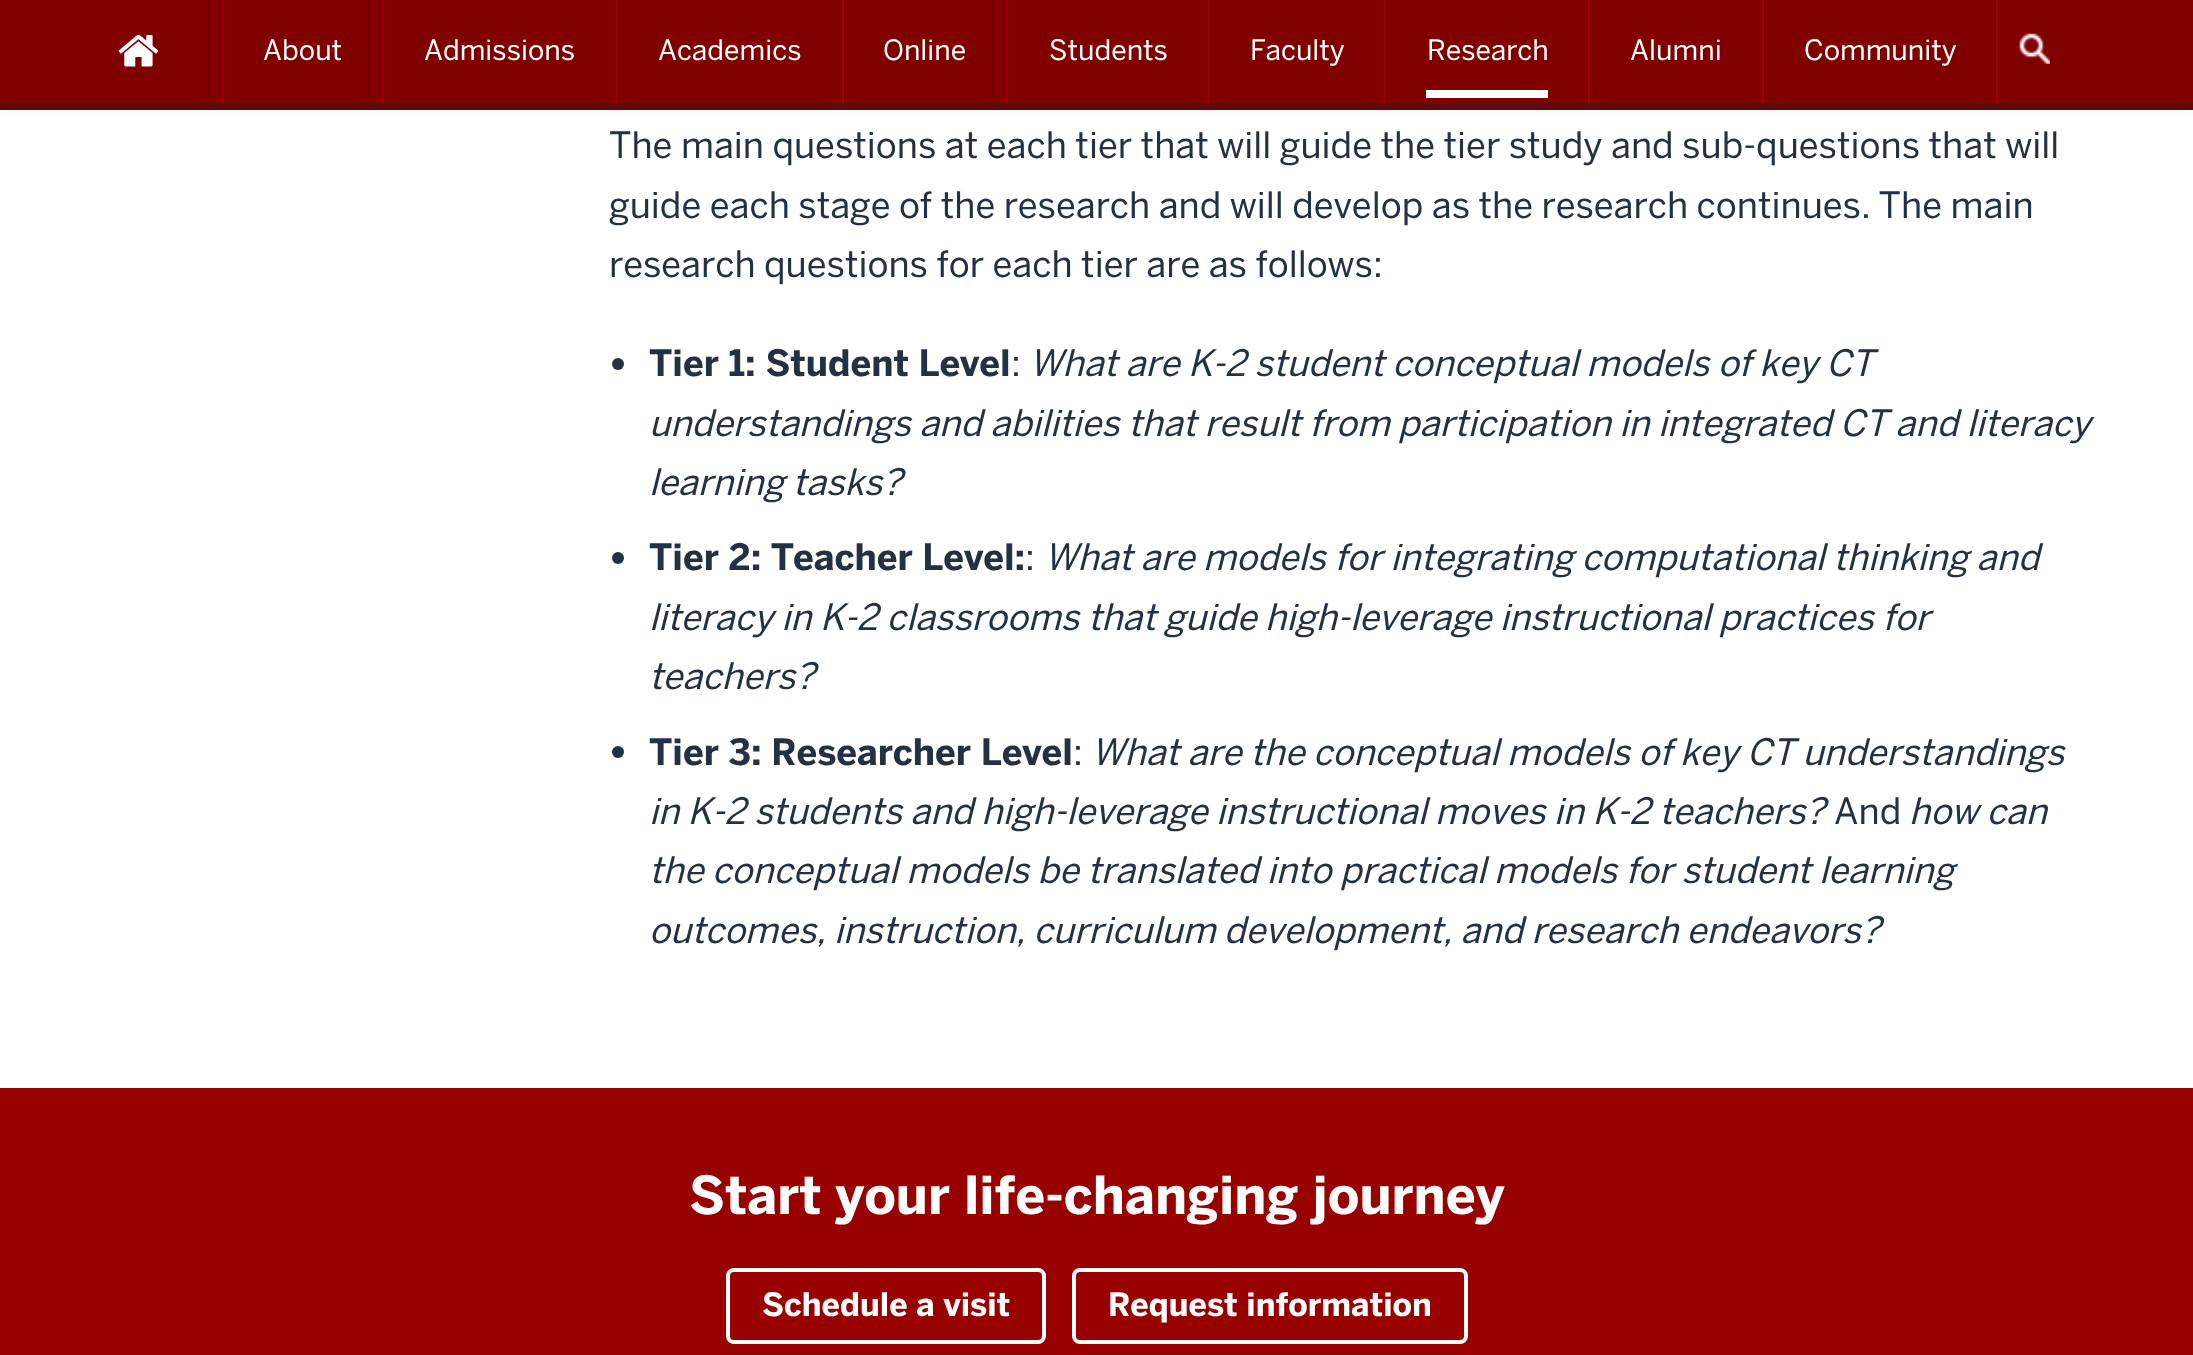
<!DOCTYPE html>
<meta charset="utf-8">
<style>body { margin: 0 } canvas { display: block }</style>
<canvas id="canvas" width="2193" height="1355"></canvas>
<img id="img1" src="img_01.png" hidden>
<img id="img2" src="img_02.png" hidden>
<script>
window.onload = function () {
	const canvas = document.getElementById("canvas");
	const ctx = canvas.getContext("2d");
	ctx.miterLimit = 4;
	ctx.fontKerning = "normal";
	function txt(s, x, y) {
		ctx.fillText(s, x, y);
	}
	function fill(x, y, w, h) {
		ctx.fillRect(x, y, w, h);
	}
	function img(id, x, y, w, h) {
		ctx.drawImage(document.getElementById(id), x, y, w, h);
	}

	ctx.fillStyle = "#FFFFFF";
	fill(0, 0, 2193, 1355);
	ctx.fillStyle = "rgba(36, 49, 66, 0.07)";
	ctx.filter = "blur(6px)";
	ctx.beginPath();
	ctx.rect(0, 6, 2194, 104);
	ctx.fill();
	ctx.filter = "none";
	ctx.fillStyle = "#800000";
	fill(0, 0, 2193, 104);
	img("img1", 118, 35, 41, 32);
	ctx.fillStyle = "#990000";
	fill(222, 0, 2, 104);
	fill(382, 0, 2, 104);
	fill(616, 0, 2, 104);
	fill(842, 0, 2, 104);
	fill(1006, 0, 2, 104);
	fill(1208, 0, 2, 104);
	fill(1384, 0, 2, 104);
	ctx.fillStyle = "#FFFFFF";
	fill(1426, 90, 122, 8);
	ctx.fillStyle = "#990000";
	fill(1588, 0, 2, 104);
	fill(1762, 0, 2, 104);
	fill(1996, 0, 2, 104);
	img("img2", 2019, 33, 31, 31);
	ctx.fillStyle = "#5A0C0C";
	fill(0, 104, 2193, 6);
	ctx.fillStyle = "#243142";
	ctx.beginPath();
	ctx.arc(618, 364, 6, 0, Math.PI * 2);
	ctx.fill();
	ctx.beginPath();
	ctx.arc(618, 558, 6, 0, Math.PI * 2);
	ctx.fill();
	ctx.beginPath();
	ctx.arc(618, 752, 6, 0, Math.PI * 2);
	ctx.fill();
	ctx.fillStyle = "#990000";
	fill(0, 1088, 2193, 267);
	ctx.beginPath();
	ctx.roundRect(728, 1270, 316, 72, 6);
	ctx.strokeStyle = "#FFFFFF";
	ctx.lineWidth = 4;
	ctx.stroke();
	ctx.beginPath();
	ctx.roundRect(1074, 1270, 392, 72, 6);
	ctx.stroke();
	ctx.font = "28px 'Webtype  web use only'";
	ctx.fillStyle = "#FFFFFF";
	txt("About", 263, 60);
	txt("Admissions", 424, 60);
	txt("Academics", 658, 60);
	txt("Online", 883, 60);
	txt("Students", 1049, 60);
	txt("Faculty", 1250, 60);
	txt("Research", 1427, 60);
	txt("Alumni", 1630, 60);
	txt("Community", 1804, 60);
	ctx.font = "36px 'Webtype  web use only'";
	ctx.fillStyle = "#243142";
	txt("The main questions at each tier that will guide the tier study and sub-questions that will", 609, 158);
	txt("guide each stage of the research and will develop as the research continues. The main", 609, 218);
	txt("research questions for each tier are as follows:", 609, 277);
	ctx.font = "bold 36px 'Webtype  web use only'";
	txt("Tier 1: Student Level", 649, 376);
	ctx.font = "36px 'Webtype  web use only'";
	txt(":", 1011, 376);
	ctx.font = "italic 36px 'Webtype  web use only'";
	txt("What are K-2 student conceptual models of key CT", 1029, 376);
	txt("understandings and abilities that result from participation in integrated CT and literacy", 649, 436);
	txt("learning tasks?", 649, 495);
	ctx.font = "bold 36px 'Webtype  web use only'";
	txt("Tier 2: Teacher Level:", 649, 570);
	ctx.font = "36px 'Webtype  web use only'";
	txt(":", 1025, 570);
	ctx.font = "italic 36px 'Webtype  web use only'";
	txt("What are models for integrating computational thinking and", 1044, 570);
	txt("literacy in K-2 classrooms that guide high-leverage instructional practices for", 649, 630);
	txt("teachers?", 649, 689);
	ctx.font = "bold 36px 'Webtype  web use only'";
	txt("Tier 3: Researcher Level", 649, 765);
	ctx.font = "36px 'Webtype  web use only'";
	txt(":", 1073, 765);
	ctx.font = "italic 36px 'Webtype  web use only'";
	txt("What are the conceptual models of key CT understandings", 1091, 765);
	txt("in K-2 students and high-leverage instructional moves in K-2 teachers?", 649, 824);
	ctx.font = "36px 'Webtype  web use only'";
	txt("And", 1834, 824);
	ctx.font = "italic 36px 'Webtype  web use only'";
	txt("how can", 1909, 824);
	txt("the conceptual models be translated into practical models for student learning", 649, 883);
	txt("outcomes, instruction, curriculum development, and research endeavors?", 649, 943);
	ctx.font = "bold 52px 'Webtype  web use only'";
	ctx.fillStyle = "#FFFFFF";
	txt("Start your life-changing journey", 689, 1214);
	ctx.font = "bold 32px 'Webtype  web use only'";
	txt("Schedule a visit", 762, 1316);
	txt("Request information", 1108, 1316);
};
</script>
